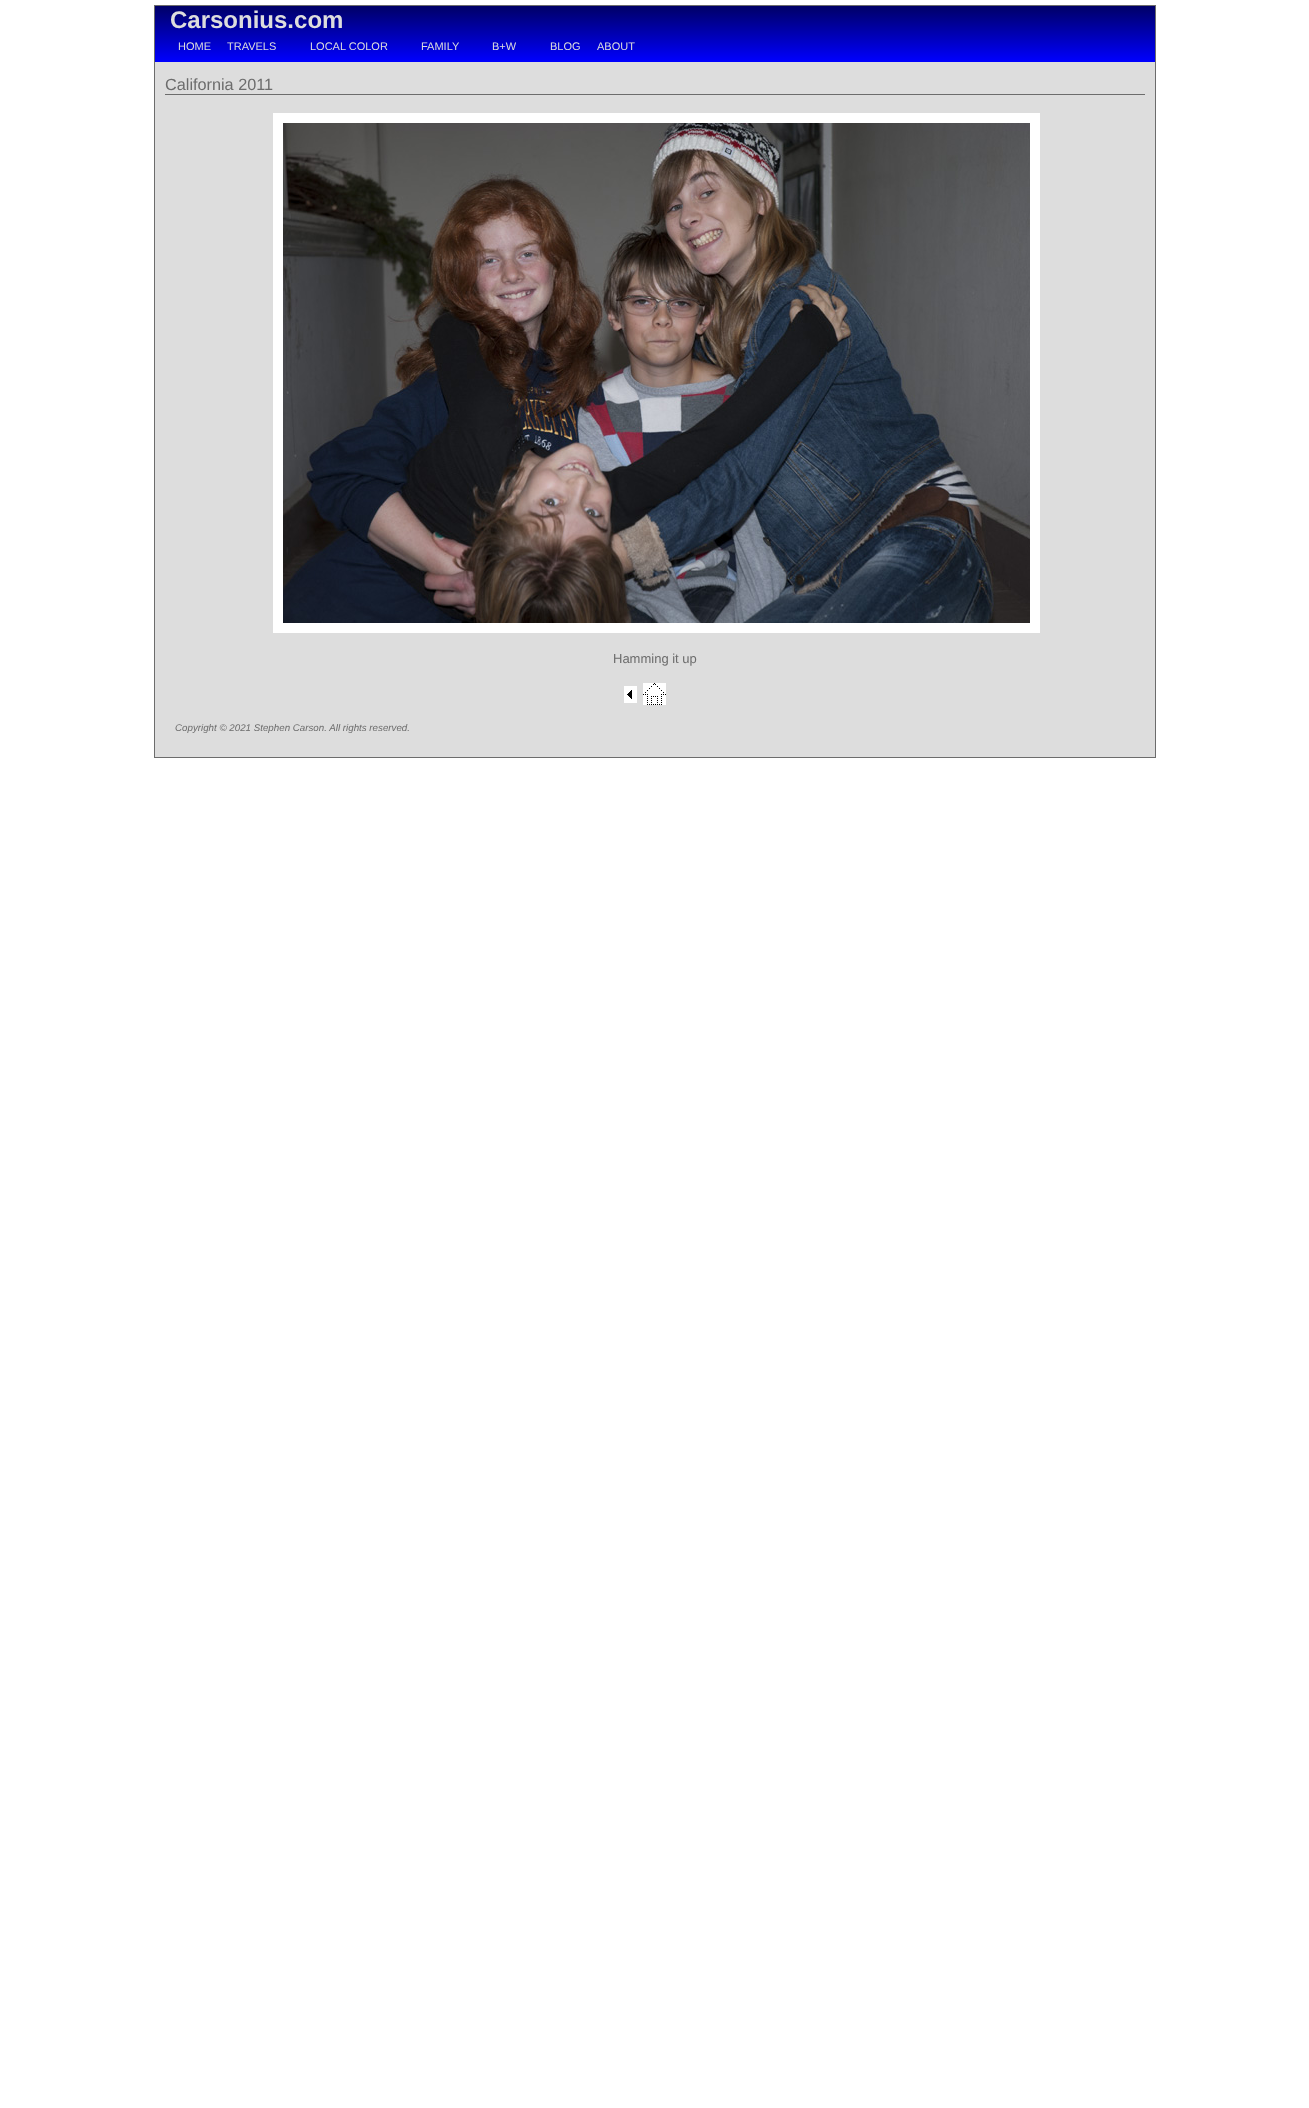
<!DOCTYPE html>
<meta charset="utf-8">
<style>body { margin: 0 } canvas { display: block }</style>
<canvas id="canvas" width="1309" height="2108"></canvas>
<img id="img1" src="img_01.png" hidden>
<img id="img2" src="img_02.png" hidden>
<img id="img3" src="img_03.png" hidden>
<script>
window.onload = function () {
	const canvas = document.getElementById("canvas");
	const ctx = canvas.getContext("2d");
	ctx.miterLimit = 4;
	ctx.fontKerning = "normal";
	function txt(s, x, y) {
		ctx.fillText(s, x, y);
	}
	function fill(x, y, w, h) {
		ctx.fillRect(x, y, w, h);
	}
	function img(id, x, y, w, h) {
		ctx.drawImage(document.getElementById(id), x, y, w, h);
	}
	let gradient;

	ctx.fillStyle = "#FFFFFF";
	fill(0, 0, 1309, 2108);
	ctx.fillStyle = "#DDDDDD";
	fill(155, 62, 1000, 695);
	ctx.strokeStyle = "#6C6C6C";
	ctx.strokeRect(154.5, 5.5, 1001, 752);
	gradient = ctx.createLinearGradient(155, 6, 155, 62);
	gradient.addColorStop(0, "#000066");
	gradient.addColorStop(1, "#0000FF");
	ctx.fillStyle = gradient;
	fill(155, 6, 1000, 56);
	ctx.fillStyle = "#6C6C6C";
	fill(165, 94, 980, 1);
	ctx.fillStyle = "#FFFFFF";
	fill(273, 113, 767, 520);
	img("img1", 283, 123, 747, 500);
	img("img2", 624, 686, 13, 17);
	img("img3", 643, 683, 23, 22);
	ctx.font = "bold 24px Liberation Sans";
	ctx.fillStyle = "#DDDDDD";
	txt("Carsonius.com", 170, 28);
	ctx.font = "11px Liberation Sans";
	txt("HOME", 178, 50);
	txt("TRAVELS", 227, 50);
	txt("LOCAL COLOR", 310, 50);
	txt("FAMILY", 421, 50);
	txt("B+W", 492, 50);
	txt("BLOG", 550, 50);
	txt("ABOUT", 597, 50);
	ctx.font = "16.25px Liberation Sans";
	ctx.fillStyle = "#6C6C6C";
	txt("California 2011", 165, 90);
	ctx.font = "13px Liberation Sans";
	txt("Hamming it up", 613, 663);
	ctx.font = "italic 9.75px Liberation Sans";
	txt("Copyright © 2021 Stephen Carson. All rights reserved.", 175, 731);
};
</script>
